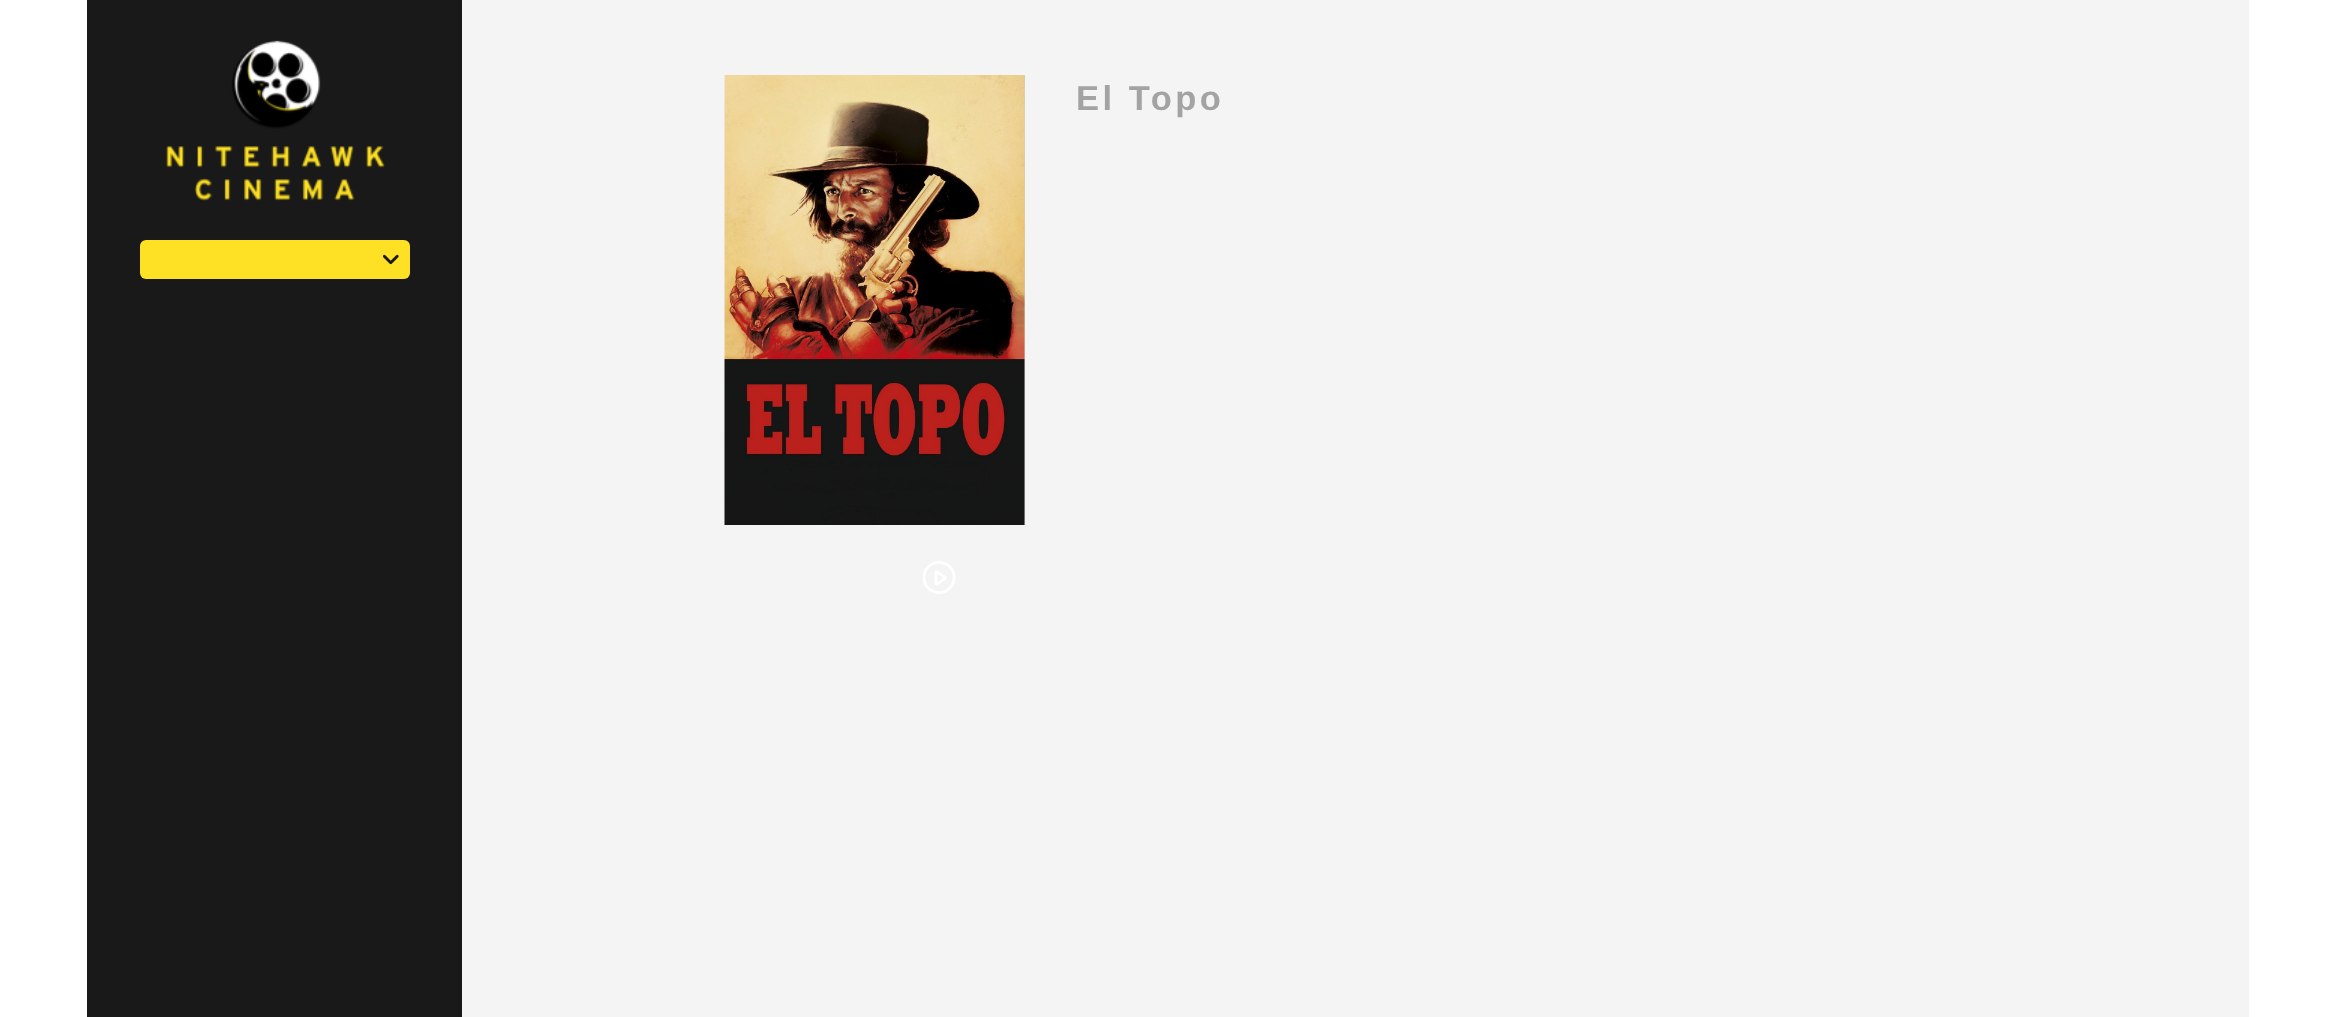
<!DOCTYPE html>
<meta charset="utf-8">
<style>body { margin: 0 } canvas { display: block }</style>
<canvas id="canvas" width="2334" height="1017"></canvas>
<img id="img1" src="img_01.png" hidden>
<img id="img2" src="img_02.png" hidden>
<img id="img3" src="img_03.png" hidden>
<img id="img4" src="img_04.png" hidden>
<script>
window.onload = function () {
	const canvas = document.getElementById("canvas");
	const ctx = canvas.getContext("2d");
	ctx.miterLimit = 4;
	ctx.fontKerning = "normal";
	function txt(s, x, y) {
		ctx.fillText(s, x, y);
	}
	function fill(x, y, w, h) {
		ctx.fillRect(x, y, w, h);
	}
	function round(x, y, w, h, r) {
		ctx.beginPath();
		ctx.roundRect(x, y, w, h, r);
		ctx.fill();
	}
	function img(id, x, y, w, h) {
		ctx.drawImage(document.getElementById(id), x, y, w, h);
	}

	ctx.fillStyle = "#FFFFFF";
	fill(0, 0, 2334, 1017);
	ctx.fillStyle = "#F4F4F4";
	fill(462, 0, 1787, 1017);
	ctx.fillStyle = "#191919";
	fill(87, 0, 375, 1017);
	img("img1", 166, 40, 219, 161);
	ctx.fillStyle = "#FEE024";
	round(140, 240, 270, 39, 6);
	img("img2", 383, 254, 16, 11);
	ctx.fillStyle = "#CCCCCC";
	fill(1024, 75, 1, 450);
	img("img3", 724, 75, 301, 450);
	img("img4", 923, 561, 33, 33);
	ctx.letterSpacing = "3.5px";
	ctx.font = "bold 34.5px Liberation Sans";
	ctx.fillStyle = "#A3A3A3";
	txt("El Topo", 1076, 110);
};
</script>
